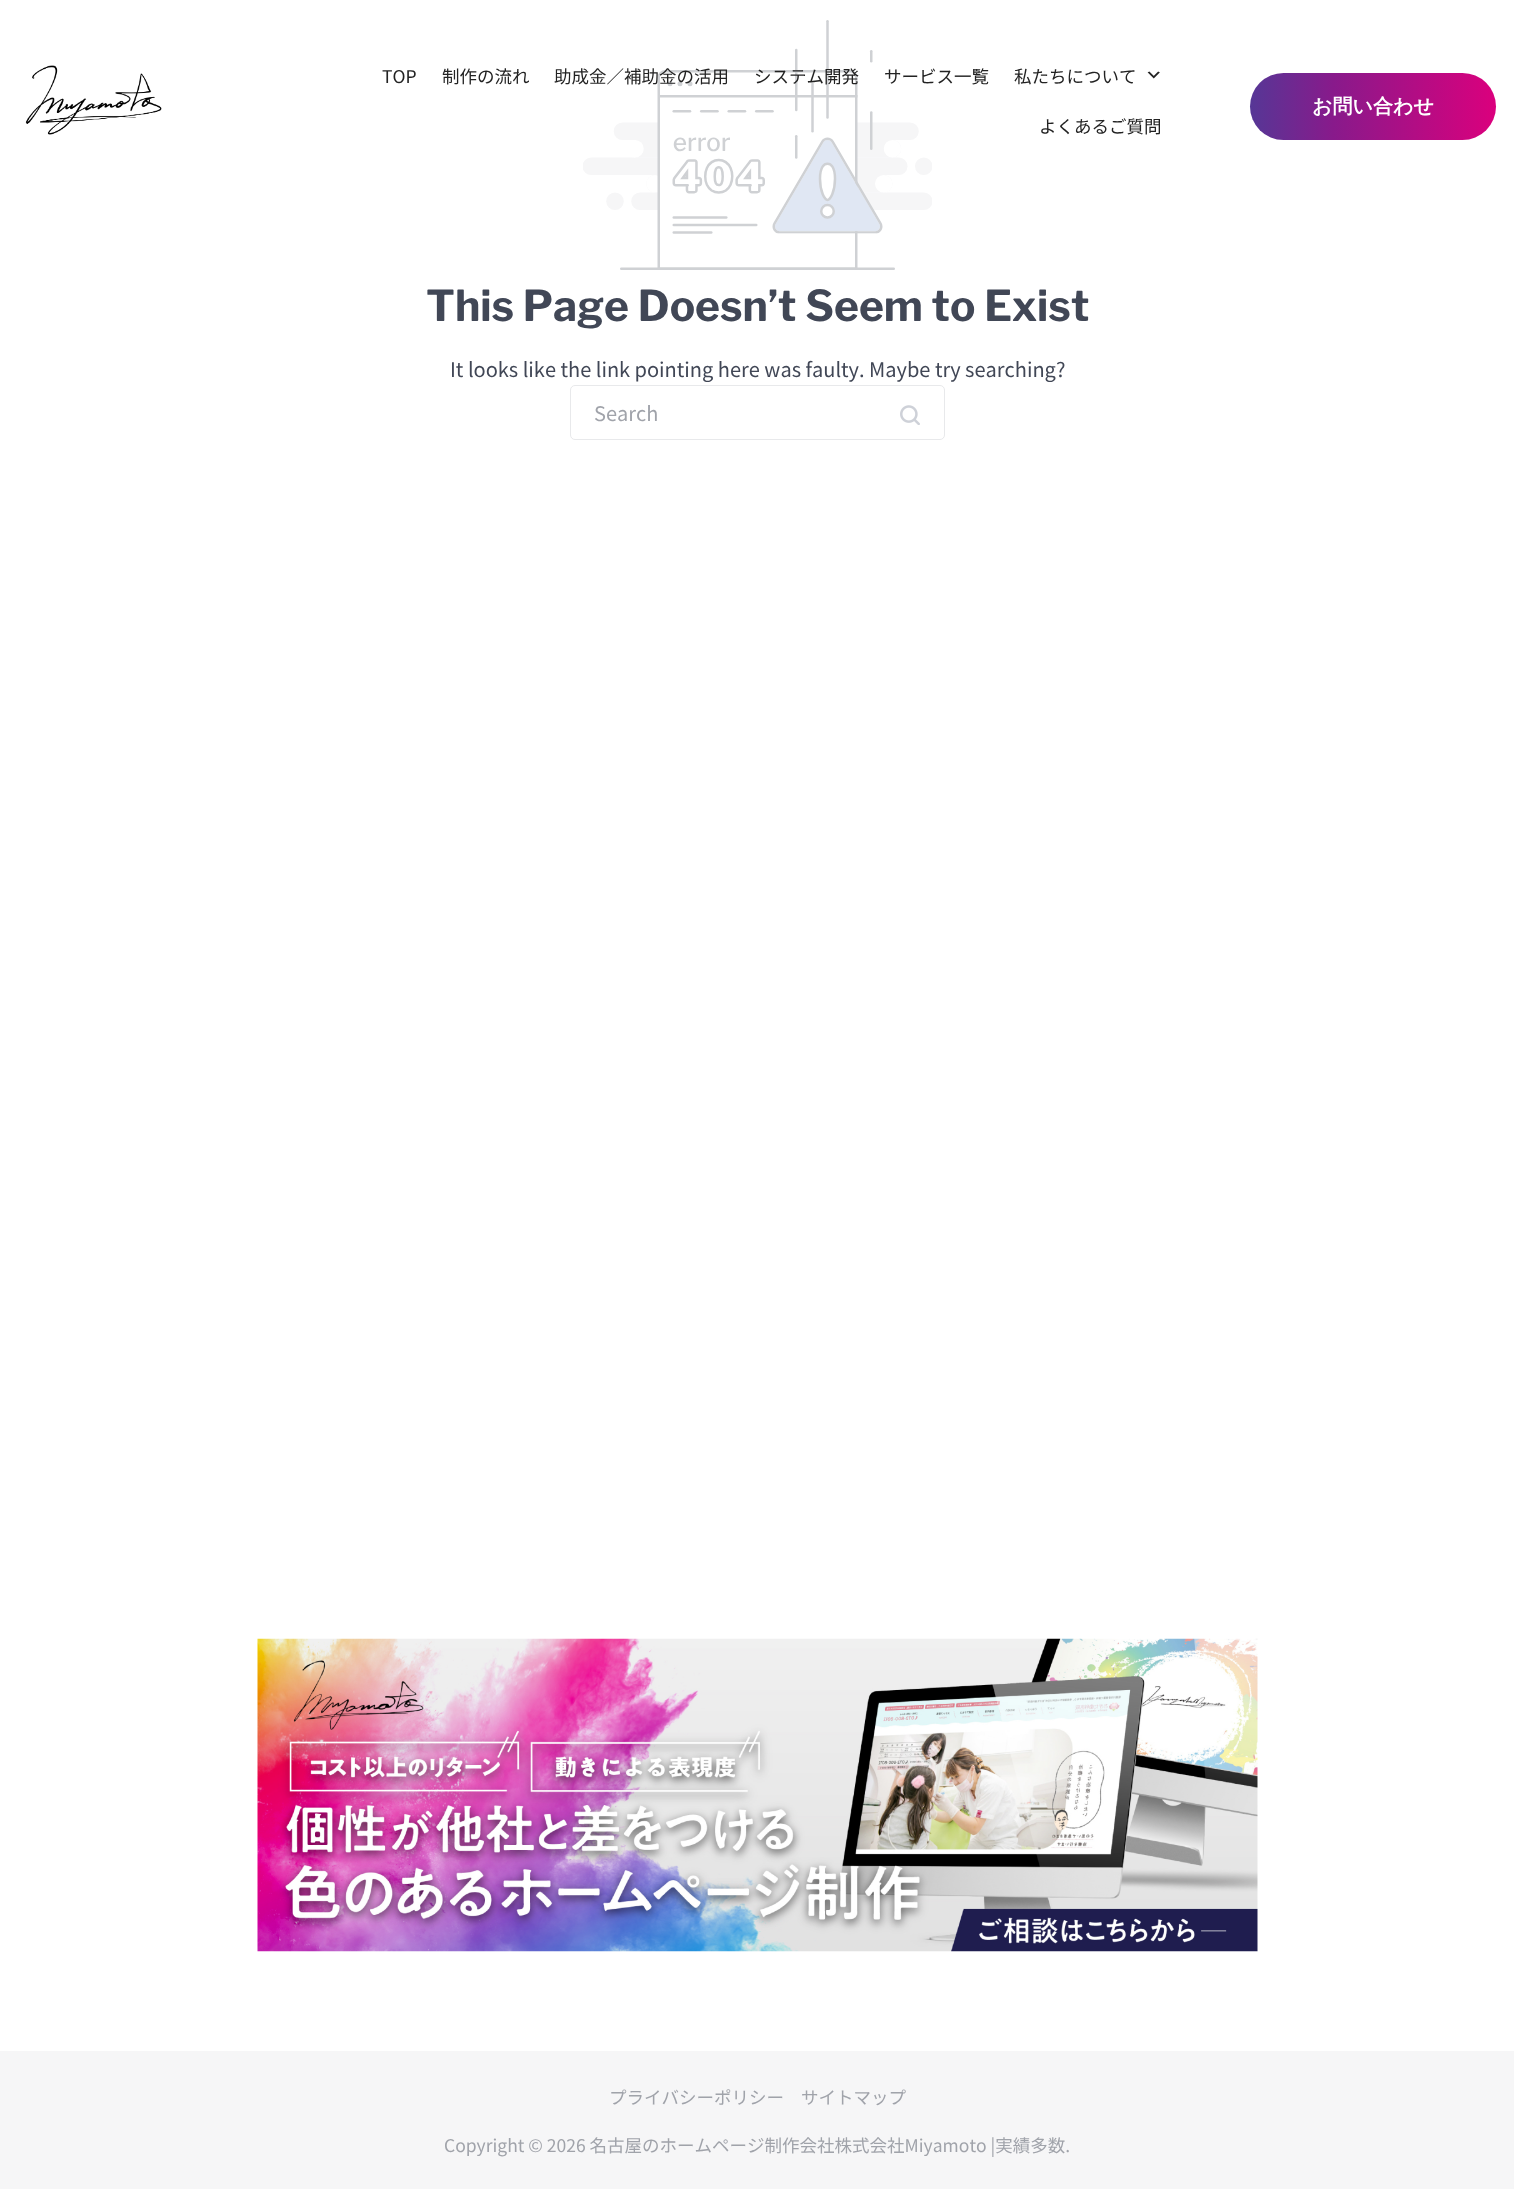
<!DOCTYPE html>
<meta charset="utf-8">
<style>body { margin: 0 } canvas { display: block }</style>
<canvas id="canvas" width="1514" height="2189"></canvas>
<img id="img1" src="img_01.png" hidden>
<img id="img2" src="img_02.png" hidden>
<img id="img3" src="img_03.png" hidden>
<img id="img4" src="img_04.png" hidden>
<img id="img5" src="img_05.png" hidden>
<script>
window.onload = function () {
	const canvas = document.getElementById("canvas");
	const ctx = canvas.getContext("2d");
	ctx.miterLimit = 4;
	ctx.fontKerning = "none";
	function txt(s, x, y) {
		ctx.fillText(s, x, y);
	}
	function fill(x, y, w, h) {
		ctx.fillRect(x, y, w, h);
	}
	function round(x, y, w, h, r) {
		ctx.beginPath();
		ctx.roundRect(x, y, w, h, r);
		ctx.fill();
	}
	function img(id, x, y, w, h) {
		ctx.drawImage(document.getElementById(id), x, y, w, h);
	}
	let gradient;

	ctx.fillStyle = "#FFFFFF";
	fill(0, 0, 1514, 2189);
	img("img1", 25, 65, 137, 70);
	img("img2", 1147, 71, 13, 8);
	gradient = ctx.createLinearGradient(1003, 106, 1496, 106);
	gradient.addColorStop(0, "#54BCE2");
	gradient.addColorStop(0.33, "#2354A1");
	gradient.addColorStop(0.67, "#881A8B");
	gradient.addColorStop(1, "#DB007D");
	ctx.fillStyle = gradient;
	round(1250, 73, 246, 67, 33.5);
	img("img3", 583, 20, 349, 250);
	ctx.beginPath();
	ctx.roundRect(570.5, 385.5, 374, 54, 4.5);
	ctx.strokeStyle = "#E8E9EB";
	ctx.stroke();
	img("img4", 900, 405, 20, 20);
	img("img5", 257, 1638, 1001, 314);
	ctx.fillStyle = "#F6F6F7";
	fill(0, 2051, 1514, 138);
	ctx.font = "17.5px Noto Sans JP";
	ctx.fillStyle = "#222222";
	txt("TOP", 382, 83);
	txt("制作の流れ", 442, 83);
	txt("助成金／補助金の活用", 554, 83);
	txt("システム開発", 754, 83);
	txt("サービス一覧", 884, 83);
	txt("私たちについて", 1014, 83);
	txt("よくあるご質問", 1039, 133);
	ctx.font = "bold 20px WenQuanYi Zen Hei";
	ctx.fillStyle = "#FFFFFF";
	txt("お問い合わせ", 1312, 113);
	ctx.font = "bold 42.5px Libre Franklin";
	ctx.fillStyle = "#414756";
	txt("This Page Doesn’t Seem to Exist", 426, 321);
	ctx.font = "20px Noto Sans JP";
	txt("It looks like the link pointing here was faulty. Maybe try searching?", 450, 377);
	ctx.fillStyle = "#A0A3AA";
	txt("Search", 594, 421);
	ctx.font = "17.5px Noto Sans JP";
	txt("プライバシーポリシー", 609, 2104);
	txt("サイトマップ", 801, 2104);
	txt("Copyright © 2026 名古屋のホームページ制作会社株式会社Miyamoto |実績多数.", 444, 2152);
};
</script>
